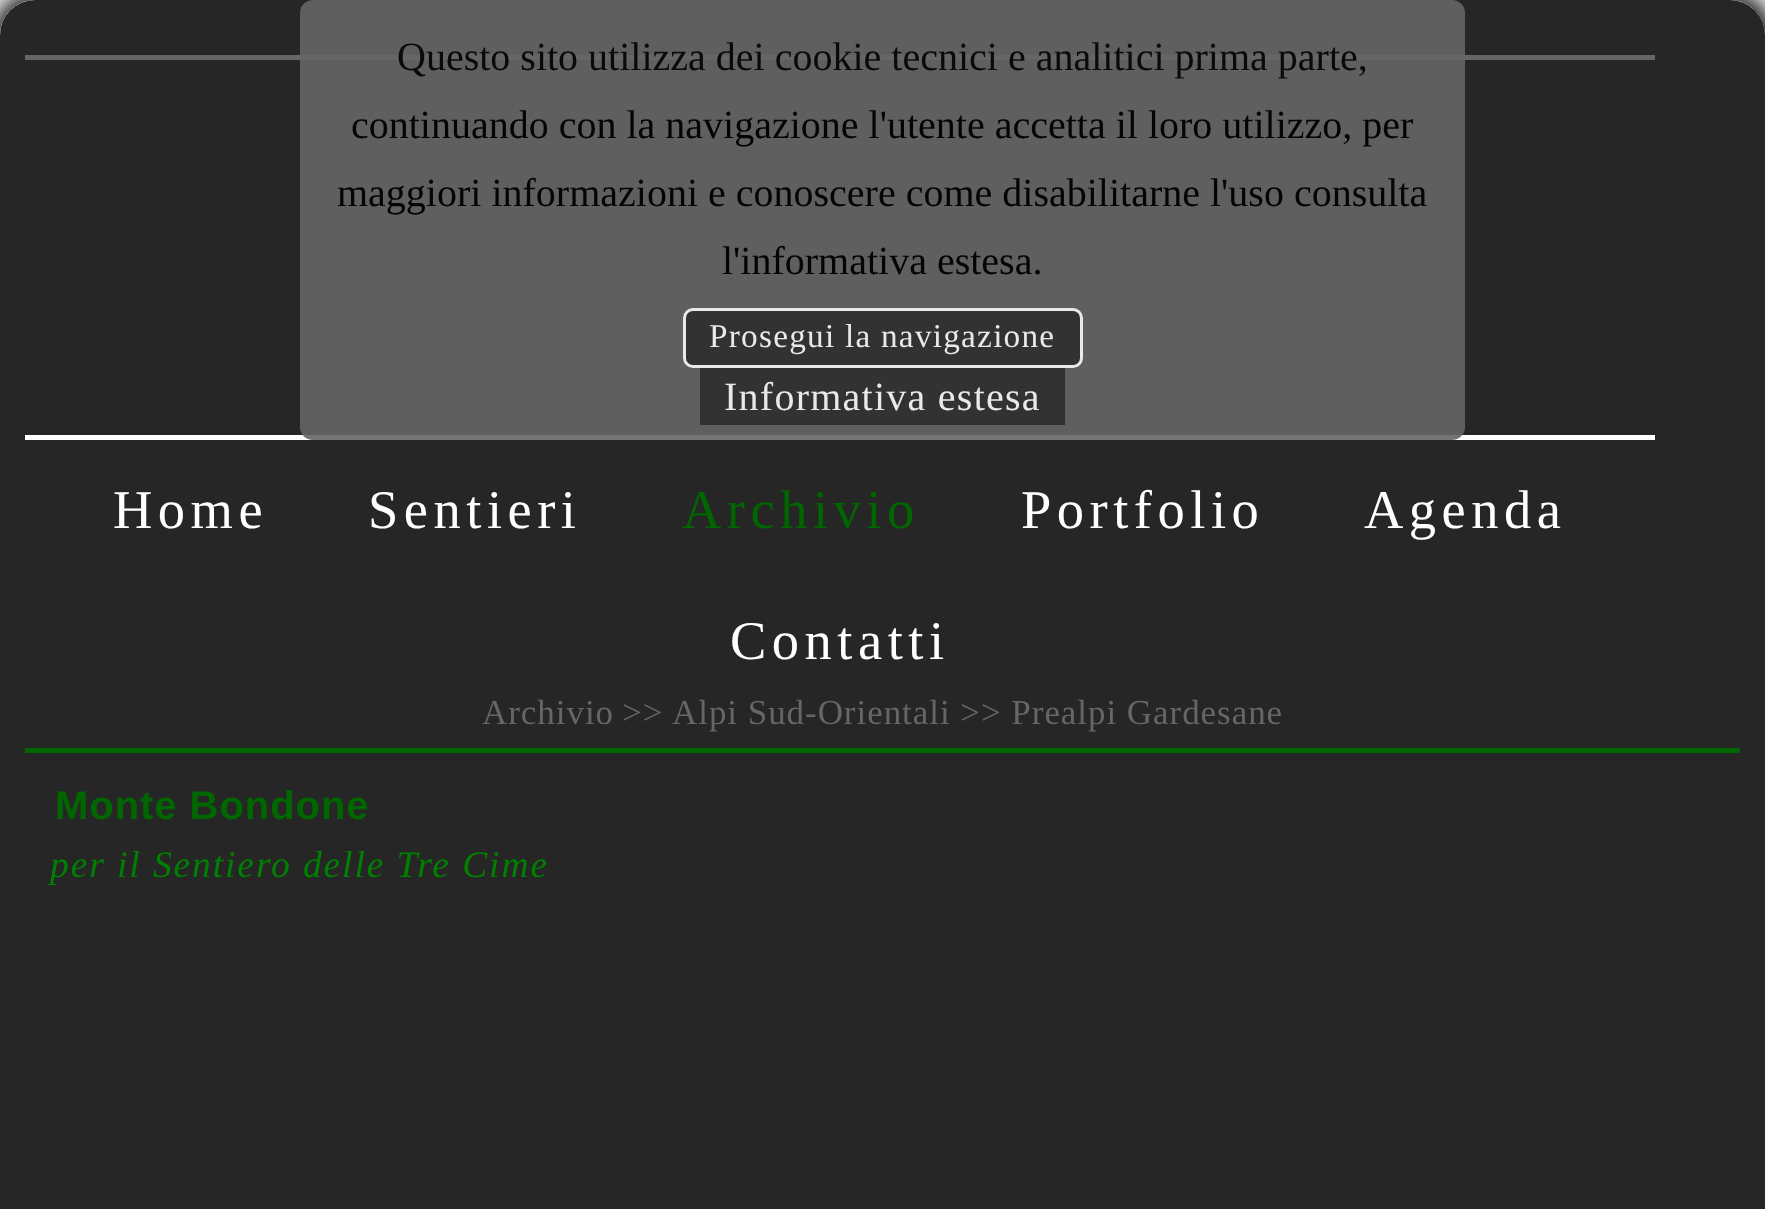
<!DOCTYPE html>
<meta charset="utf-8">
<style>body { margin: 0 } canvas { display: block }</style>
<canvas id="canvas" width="1765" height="1209"></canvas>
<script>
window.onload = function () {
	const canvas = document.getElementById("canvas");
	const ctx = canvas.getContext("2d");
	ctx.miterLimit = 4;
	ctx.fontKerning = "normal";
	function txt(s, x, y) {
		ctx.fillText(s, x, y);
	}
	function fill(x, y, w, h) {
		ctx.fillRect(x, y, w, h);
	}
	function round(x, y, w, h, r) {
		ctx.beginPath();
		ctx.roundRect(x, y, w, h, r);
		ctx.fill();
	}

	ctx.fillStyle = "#FFFFFF";
	fill(0, 0, 1765, 1209);
	ctx.save();
	ctx.beginPath();
	ctx.moveTo(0, 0);
	ctx.lineTo(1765, 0);
	ctx.lineTo(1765, 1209);
	ctx.lineTo(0, 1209);
	ctx.closePath();
	ctx.moveTo(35, 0);
	ctx.lineTo(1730, 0);
	ctx.bezierCurveTo(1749.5, 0, 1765, 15.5, 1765, 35);
	ctx.lineTo(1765, 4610);
	ctx.bezierCurveTo(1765, 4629.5, 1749.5, 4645, 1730, 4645);
	ctx.lineTo(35, 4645);
	ctx.bezierCurveTo(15.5, 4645, 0, 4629.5, 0, 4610);
	ctx.lineTo(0, 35);
	ctx.bezierCurveTo(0, 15.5, 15.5, 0, 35, 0);
	ctx.closePath();
	ctx.clip("evenodd");
	ctx.fillStyle = "#000000";
	ctx.filter = "blur(12.5px)";
	ctx.beginPath();
	ctx.roundRect(-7, -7, 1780, 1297, 43);
	ctx.fill();
	ctx.filter = "none";
	ctx.restore();
	ctx.fillStyle = "rgba(0, 0, 0, 0.85)";
	round(0, 0, 1765, 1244, 35);
	ctx.fillStyle = "#666666";
	fill(25, 55, 1630, 5);
	ctx.fillStyle = "#FFFFFF";
	fill(25, 435, 1630, 5);
	ctx.fillStyle = "rgba(102, 102, 102, 0.9)";
	round(300, 0, 1165, 440, 13);
	ctx.fillStyle = "#323232";
	ctx.beginPath();
	ctx.roundRect(684.5, 309.5, 397, 57, 8.5);
	ctx.fill();
	ctx.strokeStyle = "#E9E9E9";
	ctx.lineWidth = 3;
	ctx.stroke();
	fill(700, 368, 365, 57);
	ctx.fillStyle = "#006600";
	fill(25, 748, 1715, 5);
	ctx.font = "40px Liberation Serif";
	ctx.fillStyle = "#0A0A0A";
	txt("Questo sito utilizza dei cookie tecnici e analitici prima parte,", 397, 70);
	ctx.fillStyle = "#040404";
	txt("continuando con la navigazione l'utente accetta il loro utilizzo, per", 351, 138);
	txt("maggiori informazioni e conoscere come disabilitarne l'uso consulta", 337, 206);
	txt("l'informativa estesa.", 722, 274);
	ctx.letterSpacing = "1.25px";
	ctx.font = "33.25px Liberation Serif";
	ctx.fillStyle = "#E9E9E9";
	txt("Prosegui la navigazione", 709, 347);
	ctx.font = "40px Liberation Serif";
	txt("Informativa estesa", 724, 410);
	ctx.letterSpacing = "5.5px";
	ctx.font = "54.5px Liberation Serif";
	ctx.fillStyle = "#FFFFFF";
	txt("Home", 113, 528);
	txt("Sentieri", 368, 528);
	ctx.fillStyle = "#006600";
	txt("Archivio", 682, 528);
	ctx.fillStyle = "#FFFFFF";
	txt("Portfolio", 1021, 528);
	txt("Agenda", 1364, 528);
	txt("Contatti", 730, 659);
	ctx.letterSpacing = "0.95px";
	ctx.font = "35px Liberation Serif";
	ctx.fillStyle = "#666666";
	txt("Archivio", 482, 724);
	txt(">>", 622, 724);
	txt("Alpi Sud-Orientali >> Prealpi Gardesane", 672, 724);
	ctx.font = "bold 40px Liberation Sans";
	ctx.fillStyle = "#006600";
	txt("Monte Bondone", 55, 819);
	ctx.letterSpacing = "1.9px";
	ctx.font = "italic 37.5px Liberation Serif";
	ctx.fillStyle = "#008000";
	txt("per il Sentiero delle Tre Cime", 50, 877);
};
</script>
